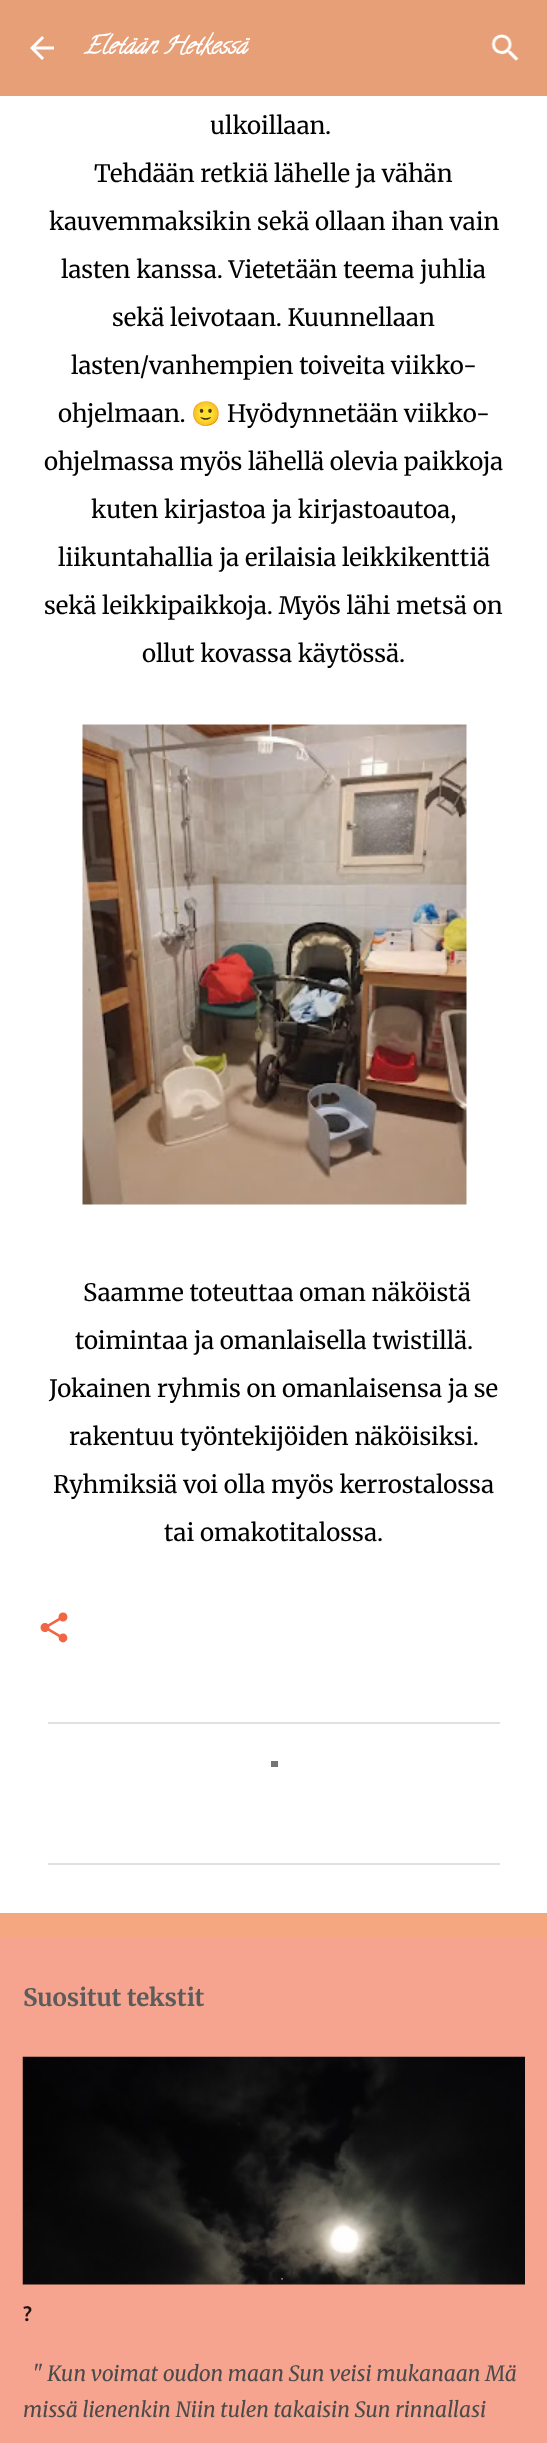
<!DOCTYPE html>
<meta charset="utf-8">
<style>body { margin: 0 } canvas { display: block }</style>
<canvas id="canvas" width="547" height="2443"></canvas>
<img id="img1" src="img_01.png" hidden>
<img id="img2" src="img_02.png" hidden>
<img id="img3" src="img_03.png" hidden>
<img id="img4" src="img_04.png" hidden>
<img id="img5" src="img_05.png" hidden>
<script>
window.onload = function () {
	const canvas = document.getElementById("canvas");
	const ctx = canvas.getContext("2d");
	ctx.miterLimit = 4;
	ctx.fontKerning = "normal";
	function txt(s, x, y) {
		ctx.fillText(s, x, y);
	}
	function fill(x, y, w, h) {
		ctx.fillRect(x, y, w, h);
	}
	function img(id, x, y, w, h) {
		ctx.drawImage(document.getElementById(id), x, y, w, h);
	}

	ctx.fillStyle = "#F5A87F";
	fill(0, 0, 547, 2443);
	ctx.fillStyle = "#E79F78";
	fill(0, 0, 547, 96);
	img("img1", 30, 36, 24, 24);
	img("img2", 491, 34, 28, 27);
	ctx.fillStyle = "#FFFFFF";
	fill(0, 96, 547, 1817);
	img("img3", 82, 724, 385, 481);
	img("img4", 40, 1612, 28, 31);
	ctx.fillStyle = "#E1E1E1";
	fill(48, 1722, 452, 2);
	fill(48, 1863, 452, 2);
	ctx.fillStyle = "#F6A48F";
	fill(0, 1937, 547, 506);
	img("img5", 22, 2056, 503, 229);
	ctx.fillStyle = "#757575";
	fill(271, 1761, 7, 6);
	ctx.font = "italic bold 24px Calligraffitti";
	ctx.fillStyle = "#FFFFFF";
	txt("Eletään Hetkessä", 84, 53);
	ctx.font = "24px Merriweather";
	ctx.fillStyle = "#000000";
	txt("ulkoillaan.", 210, 134);
	txt("Tehdään retkiä lähelle ja vähän", 94, 182);
	txt("kauvemmaksikin sekä ollaan ihan vain", 49, 230);
	txt("lasten kanssa. Vietetään teema juhlia", 61, 278);
	txt("sekä leivotaan. Kuunnellaan", 112, 326);
	txt("lasten/vanhempien toiveita viikko-", 71, 374);
	txt("ohjelmaan.", 58, 422);
	ctx.font = "24px Noto Color Emoji";
	txt("🙂", 191, 422);
	ctx.font = "24px Merriweather";
	txt("Hyödynnetään viikko-", 227, 422);
	txt("ohjelmassa myös lähellä olevia paikkoja", 44, 470);
	txt("kuten kirjastoa ja kirjastoautoa,", 91, 518);
	txt("liikuntahallia ja erilaisia leikkikenttiä", 58, 566);
	txt("sekä leikkipaikkoja. Myös lähi metsä on", 44, 614);
	txt("ollut kovassa käytössä.", 142, 662);
	txt("Saamme toteuttaa oman näköistä", 83, 1301);
	txt("toimintaa ja omanlaisella twistillä.", 75, 1349);
	txt("Jokainen ryhmis on omanlaisensa ja se", 49, 1397);
	txt("rakentuu työntekijöiden näköisiksi.", 69, 1445);
	txt("Ryhmiksiä voi olla myös kerrostalossa", 53, 1493);
	txt("tai omakotitalossa.", 164, 1541);
	ctx.font = "bold 24px Merriweather";
	ctx.fillStyle = "#5C5C5C";
	txt("Suositut tekstit", 23, 2006);
	ctx.font = "500 21px Ubuntu";
	ctx.fillStyle = "#211613";
	txt("?", 23, 2321);
	ctx.font = "italic 300 21px Merriweather";
	ctx.fillStyle = "#4A4A4A";
	txt("\" Kun voimat oudon maan Sun veisi mukanaan Mä", 32, 2381);
	txt("missä lienenkin Niin tulen takaisin Sun rinnallasi", 23, 2417);
};
</script>
